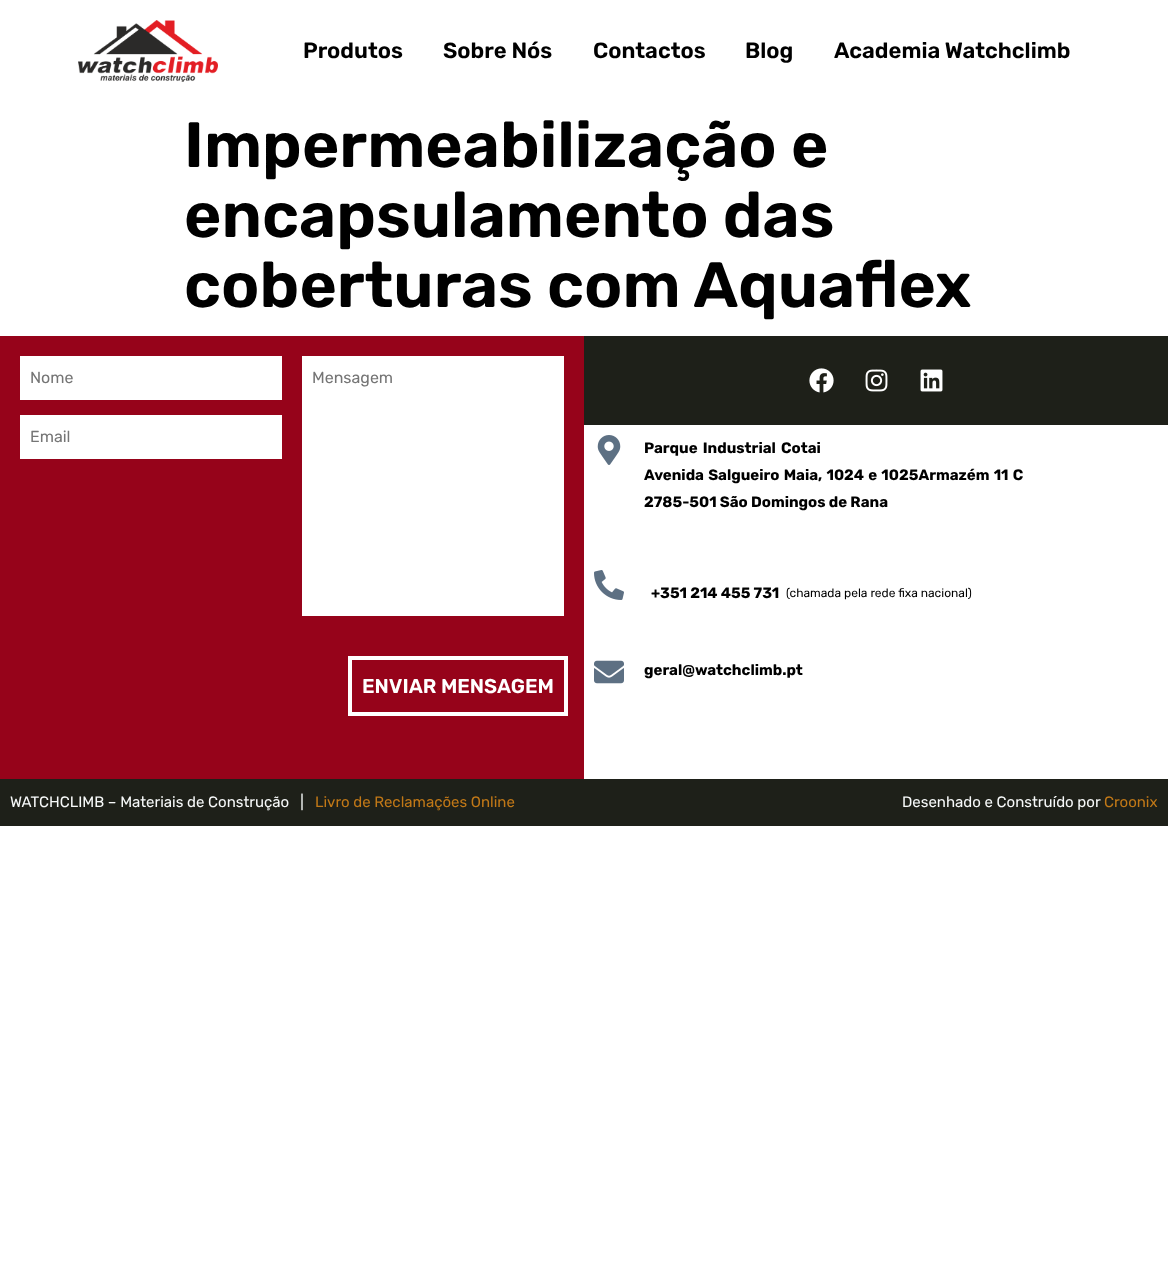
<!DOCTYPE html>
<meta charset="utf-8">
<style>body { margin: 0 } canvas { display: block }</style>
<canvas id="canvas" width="1168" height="1273"></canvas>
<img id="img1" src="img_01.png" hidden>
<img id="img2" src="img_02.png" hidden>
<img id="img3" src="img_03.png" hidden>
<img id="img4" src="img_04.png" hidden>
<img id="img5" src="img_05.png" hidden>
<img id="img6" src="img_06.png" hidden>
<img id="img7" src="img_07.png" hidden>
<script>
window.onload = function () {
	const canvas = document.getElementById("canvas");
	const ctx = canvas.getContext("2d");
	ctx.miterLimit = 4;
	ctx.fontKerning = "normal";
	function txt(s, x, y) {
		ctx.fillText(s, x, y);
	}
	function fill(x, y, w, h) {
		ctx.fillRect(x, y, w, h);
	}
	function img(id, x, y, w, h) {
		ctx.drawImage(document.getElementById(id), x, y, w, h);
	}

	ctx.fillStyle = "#FFFFFF";
	fill(0, 0, 1168, 1273);
	img("img1", 78, 20, 140, 62);
	ctx.fillStyle = "#96031A";
	fill(0, 336, 584, 443);
	ctx.fillStyle = "#FFFFFF";
	fill(20, 356, 262, 44);
	fill(20, 415, 262, 44);
	fill(302, 356, 262, 260);
	ctx.strokeStyle = "#FFFFFF";
	ctx.lineWidth = 4;
	ctx.strokeRect(350, 658, 216, 56);
	ctx.fillStyle = "#1E2019";
	fill(584, 336, 584, 89);
	img("img2", 809, 368, 25, 25);
	img("img3", 865, 369, 23, 23);
	img("img4", 920, 369, 23, 23);
	img("img5", 597, 435, 24, 30);
	img("img6", 594, 570, 30, 30);
	img("img7", 594, 660, 30, 24);
	fill(0, 779, 1168, 47);
	ctx.font = "600 22px Rubik";
	ctx.fillStyle = "#000000";
	txt("Produtos", 303, 58);
	txt("Sobre Nós", 443, 58);
	txt("Contactos", 593, 58);
	txt("Blog", 745, 58);
	txt("Academia Watchclimb", 834, 58);
	ctx.font = "600 64px Rubik";
	txt("Impermeabilização e", 184, 167);
	txt("encapsulamento das", 184, 237);
	txt("coberturas com Aquaflex", 184, 307);
	ctx.font = "16px Rubik";
	ctx.fillStyle = "#757575";
	txt("Nome", 30, 383);
	txt("Email", 30, 442);
	txt("Mensagem", 312, 383);
	ctx.font = "600 20px Rubik";
	ctx.fillStyle = "#FFFFFF";
	txt("ENVIAR MENSAGEM", 362, 693);
	ctx.wordSpacing = "2px";
	ctx.font = "bold 15px Rubik";
	ctx.fillStyle = "#000000";
	txt("Parque Industrial Cotai", 644, 453);
	ctx.wordSpacing = "1px";
	txt("Avenida Salgueiro Maia, 1024 e 1025Armazém 11 C", 644, 480);
	ctx.wordSpacing = "0px";
	txt("2785-501 São Domingos de Rana", 644, 507);
	txt("+351 214 455 731", 651, 598);
	ctx.font = "12px Rubik";
	txt("(chamada pela rede fixa nacional)", 786, 597);
	ctx.font = "bold 15px Rubik";
	txt("geral@watchclimb.pt", 644, 675);
	ctx.font = "15px Rubik";
	ctx.fillStyle = "#F7F9F9";
	txt("WATCHCLIMB – Materiais de Construção   |", 10, 807);
	ctx.fillStyle = "#C17817";
	txt("Livro de Reclamações Online", 315, 807);
	ctx.fillStyle = "#F7F9F9";
	txt("Desenhado e Construído por", 902, 807);
	ctx.fillStyle = "#C17817";
	txt("Croonix", 1104, 807);
};
</script>
